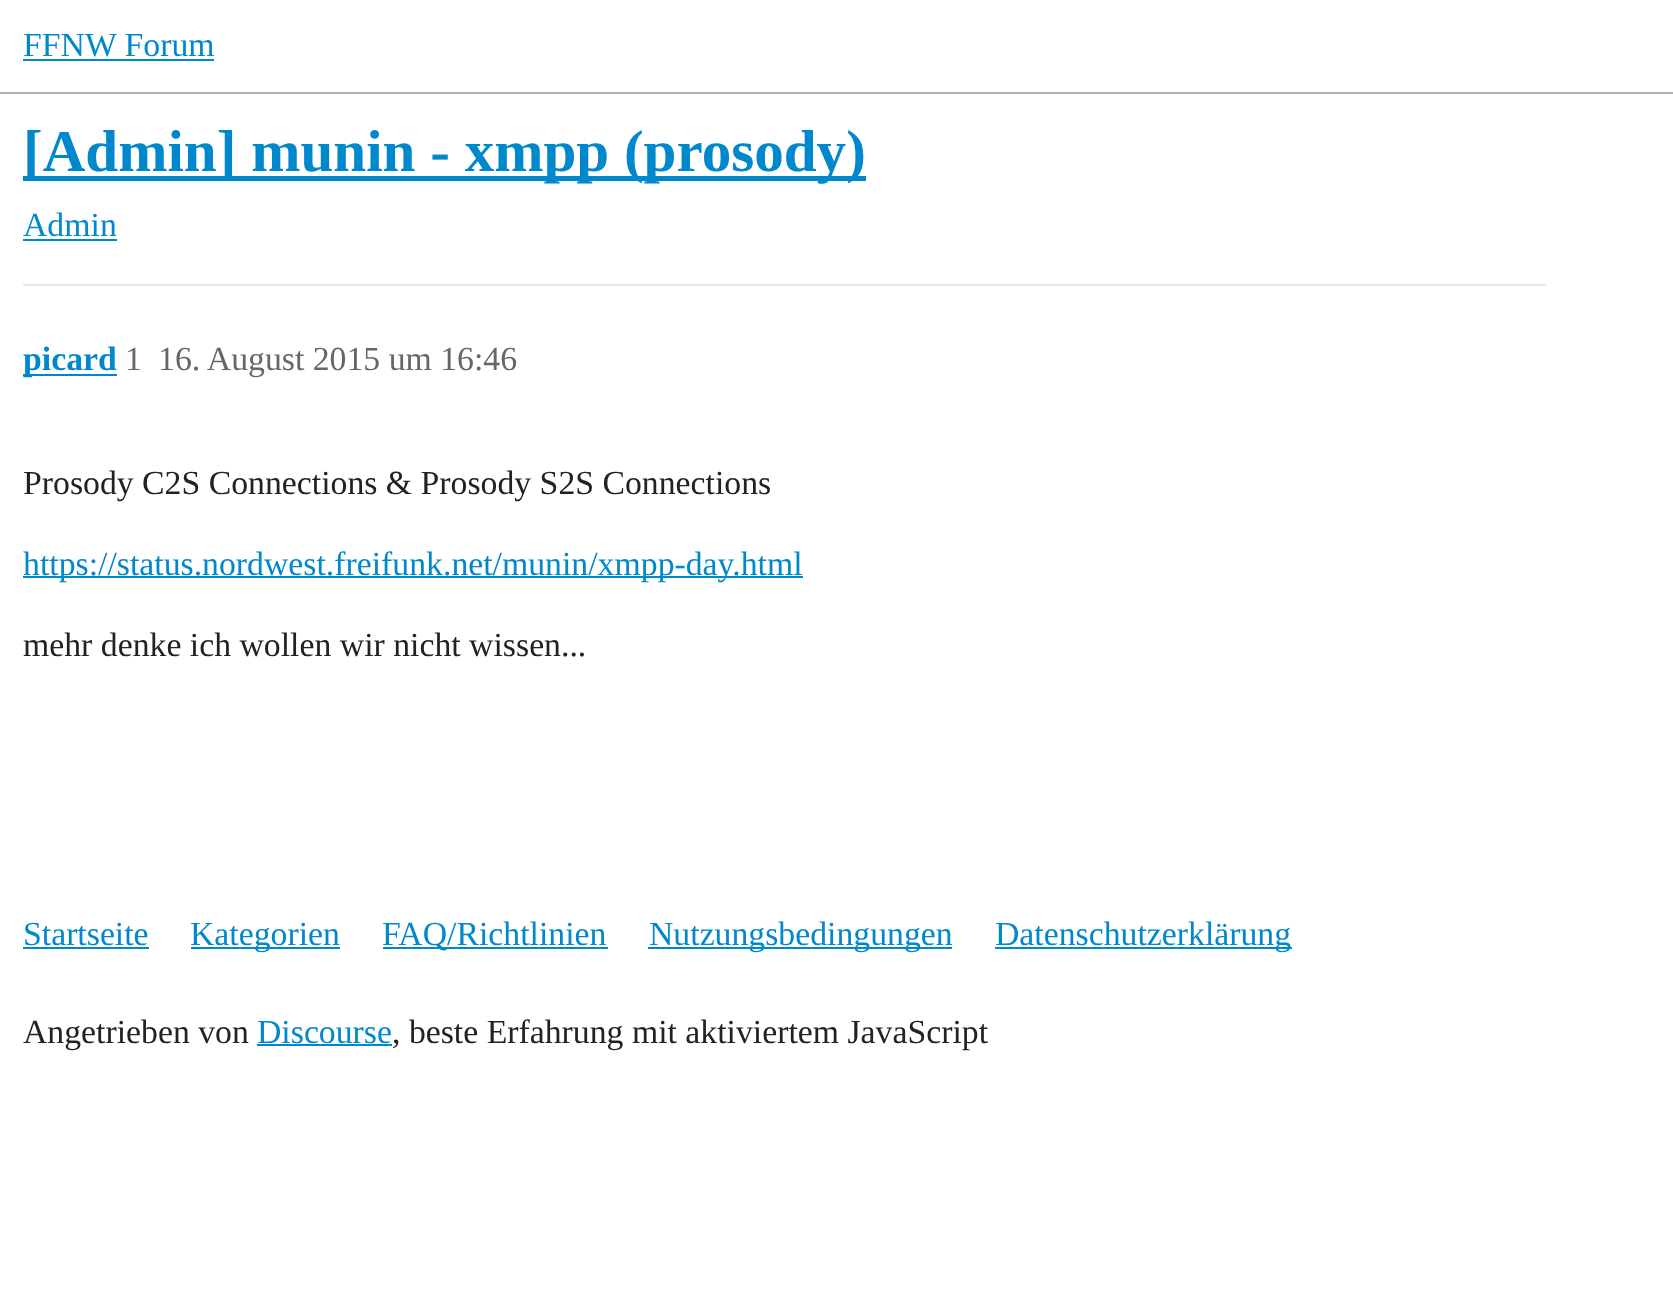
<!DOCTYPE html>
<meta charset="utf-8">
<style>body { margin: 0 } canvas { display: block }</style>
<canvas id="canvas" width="1673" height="1291"></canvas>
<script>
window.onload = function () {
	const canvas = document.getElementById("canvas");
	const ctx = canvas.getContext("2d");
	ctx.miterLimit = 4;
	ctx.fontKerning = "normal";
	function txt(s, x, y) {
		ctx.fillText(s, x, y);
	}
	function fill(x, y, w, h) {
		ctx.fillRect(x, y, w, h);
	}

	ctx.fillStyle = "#FFFFFF";
	fill(0, 0, 1673, 1291);
	ctx.fillStyle = "#AFAFAF";
	fill(0, 92, 1673, 2);
	ctx.fillStyle = "#0088CC";
	fill(23, 59, 191, 2);
	fill(23, 176, 843, 5);
	fill(23, 239, 94, 2);
	ctx.fillStyle = "#E9E9E9";
	fill(23, 284, 1523, 2);
	ctx.fillStyle = "#0088CC";
	fill(23, 374, 94, 2);
	fill(23, 576, 780, 2);
	fill(23, 947, 126, 2);
	fill(191, 947, 149, 2);
	fill(383, 947, 225, 2);
	fill(648, 947, 304, 2);
	fill(995, 947, 297, 2);
	fill(257, 1044, 135, 2);
	ctx.font = "33.75px Liberation Serif";
	txt("FFNW Forum", 23, 56);
	ctx.font = "bold 59.1px Liberation Serif";
	txt("[Admin] munin - xmpp (prosody)", 23, 171);
	ctx.font = "33.75px Liberation Serif";
	txt("Admin", 23, 236);
	ctx.font = "bold 33.75px Liberation Serif";
	txt("picard", 23, 370);
	ctx.font = "33.75px Liberation Serif";
	ctx.fillStyle = "#666666";
	txt("1", 125, 370);
	txt("16. August 2015 um 16:46", 158, 370);
	ctx.fillStyle = "#222222";
	txt("Prosody C2S Connections & Prosody S2S Connections", 23, 494);
	ctx.fillStyle = "#0088CC";
	txt("https://status.nordwest.freifunk.net/munin/xmpp-day.html", 23, 575);
	ctx.fillStyle = "#222222";
	txt("mehr denke ich wollen wir nicht wissen...", 23, 656);
	ctx.fillStyle = "#0088CC";
	txt("Startseite", 23, 945);
	txt("Kategorien", 190, 945);
	txt("FAQ/Richtlinien", 382, 945);
	txt("Nutzungsbedingungen", 649, 945);
	txt("Datenschutzerklärung", 995, 945);
	ctx.fillStyle = "#222222";
	txt("Angetrieben von", 23, 1043);
	ctx.fillStyle = "#0088CC";
	txt("Discourse", 257, 1043);
	ctx.fillStyle = "#222222";
	txt(", beste Erfahrung mit aktiviertem JavaScript", 392, 1043);
};
</script>
